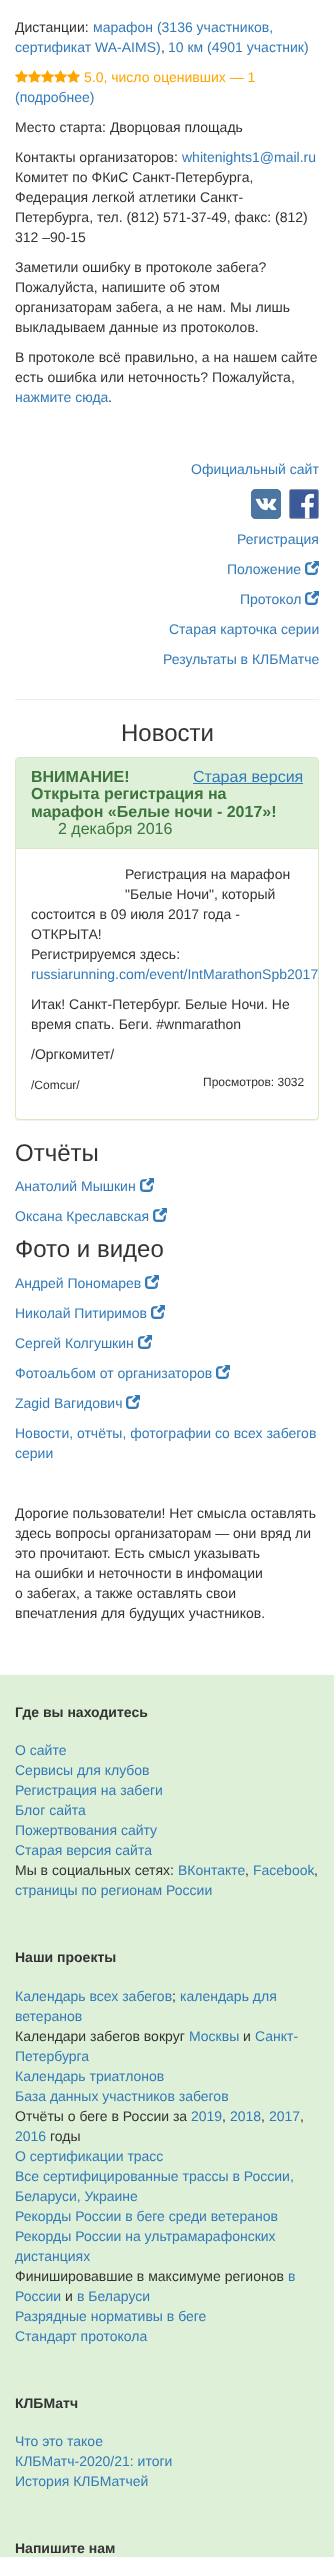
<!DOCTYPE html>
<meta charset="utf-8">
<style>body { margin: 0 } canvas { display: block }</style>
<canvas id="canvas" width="334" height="2557"></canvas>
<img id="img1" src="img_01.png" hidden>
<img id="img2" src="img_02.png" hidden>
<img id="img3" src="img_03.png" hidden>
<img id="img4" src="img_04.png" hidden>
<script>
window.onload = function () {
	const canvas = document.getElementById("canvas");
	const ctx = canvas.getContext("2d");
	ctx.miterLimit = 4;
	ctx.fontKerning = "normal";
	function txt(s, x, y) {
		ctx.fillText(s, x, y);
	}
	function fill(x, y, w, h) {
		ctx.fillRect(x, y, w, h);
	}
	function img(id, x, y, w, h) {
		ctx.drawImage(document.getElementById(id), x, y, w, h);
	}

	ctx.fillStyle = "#FFFFFF";
	fill(0, 0, 334, 2557);
	img("img1", 15, 70, 13, 13);
	img("img1", 28, 70, 13, 13);
	img("img1", 41, 70, 13, 13);
	img("img1", 54, 70, 13, 13);
	img("img1", 67, 70, 13, 13);
	img("img2", 251, 489, 30, 30);
	img("img3", 289, 489, 30, 30);
	img("img4", 305, 561, 14, 14);
	img("img4", 305, 591, 14, 14);
	ctx.fillStyle = "#EEEEEE";
	fill(15, 699, 304, 1);
	ctx.fillStyle = "rgba(0, 0, 0, 0.05)";
	ctx.filter = "blur(0.5px)";
	ctx.beginPath();
	ctx.roundRect(15, 758, 304, 363, 4);
	ctx.fill();
	ctx.filter = "none";
	ctx.fillStyle = "#FFFFFF";
	ctx.beginPath();
	ctx.roundRect(15.5, 757.5, 303, 362, 3.5);
	ctx.fill();
	ctx.strokeStyle = "#D6E9C6";
	ctx.stroke();
	ctx.fillStyle = "#DFF0D8";
	ctx.beginPath();
	ctx.roundRect(16, 758, 302, 91, [3, 3, 0, 0]);
	ctx.fill();
	ctx.fillStyle = "#D6E9C6";
	fill(16, 848, 302, 1);
	ctx.fillStyle = "#337AB7";
	fill(193, 783, 110, 1);
	img("img4", 140, 1178, 14, 14);
	img("img4", 153, 1208, 14, 14);
	img("img4", 145, 1275, 14, 14);
	img("img4", 151, 1305, 14, 14);
	img("img4", 138, 1335, 14, 14);
	img("img4", 216, 1365, 14, 14);
	img("img4", 126, 1395, 14, 14);
	ctx.fillStyle = "#DFF0D8";
	fill(0, 1675, 334, 882);
	ctx.font = "14px Liberation Sans";
	ctx.fillStyle = "#333333";
	txt("Дистанции:", 15, 32);
	ctx.fillStyle = "#337AB7";
	txt("марафон (3136 участников,", 93, 32);
	txt("сертификат WA-AIMS)", 15, 52);
	ctx.fillStyle = "#333333";
	txt(",", 161, 52);
	ctx.fillStyle = "#337AB7";
	txt("10 км (4901 участник)", 168, 52);
	ctx.fillStyle = "#FFA500";
	txt("5.0, число оценивших — 1", 84, 82);
	ctx.fillStyle = "#337AB7";
	txt("(подробнее)", 15, 102);
	ctx.fillStyle = "#333333";
	txt("Место старта: Дворцовая площадь", 15, 132);
	txt("Контакты организаторов:", 15, 162);
	ctx.fillStyle = "#337AB7";
	txt("whitenights1@mail.ru", 182, 162);
	ctx.fillStyle = "#333333";
	txt("Комитет по ФКиС Санкт-Петербурга,", 15, 182);
	txt("Федерация легкой атлетики Санкт-", 15, 202);
	txt("Петербурга, тел. (812) 571-37-49, факс: (812)", 15, 222);
	txt("312 –90-15", 15, 242);
	txt("Заметили ошибку в протоколе забега?", 15, 272);
	txt("Пожалуйста, напишите об этом", 15, 292);
	txt("организаторам забега, а не нам. Мы лишь", 15, 312);
	txt("выкладываем данные из протоколов.", 15, 332);
	txt("В протоколе всё правильно, а на нашем сайте", 15, 362);
	txt("есть ошибка или неточность? Пожалуйста,", 15, 382);
	ctx.fillStyle = "#337AB7";
	txt("нажмите сюда", 15, 402);
	ctx.fillStyle = "#333333";
	txt(".", 108, 402);
	ctx.fillStyle = "#337AB7";
	txt("Официальный сайт", 191, 474);
	txt("Регистрация", 237, 544);
	txt("Положение", 227, 574);
	txt("Протокол", 240, 604);
	txt("Старая карточка серии", 169, 634);
	txt("Результаты в КЛБМатче", 163, 664);
	ctx.font = "24px Liberation Sans";
	ctx.fillStyle = "#333333";
	txt("Новости", 121, 741);
	ctx.font = "bold 16px Liberation Sans";
	ctx.fillStyle = "#3C763D";
	txt("ВНИМАНИЕ!", 31, 782);
	ctx.font = "16px Liberation Sans";
	ctx.fillStyle = "#337AB7";
	txt("Старая версия", 193, 782);
	ctx.font = "bold 16px Liberation Sans";
	ctx.fillStyle = "#3C763D";
	txt("Открыта регистрация на", 31, 799);
	txt("марафон «Белые ночи - 2017»!", 31, 817);
	ctx.font = "16px Liberation Sans";
	txt("2 декабря 2016", 58, 834);
	ctx.font = "14px Liberation Sans";
	ctx.fillStyle = "#333333";
	txt("Регистрация на марафон", 125, 879);
	txt("\"Белые Ночи\", который", 125, 899);
	txt("состоится в 09 июля 2017 года -", 31, 919);
	txt("ОТКРЫТА!", 31, 939);
	txt("Регистрируемся здесь:", 31, 959);
	ctx.fillStyle = "#337AB7";
	txt("russiarunning.com/event/IntMarathonSpb2017", 31, 979);
	ctx.fillStyle = "#333333";
	txt("Итак! Санкт-Петербург. Белые Ночи. Не", 31, 1009);
	txt("время спать. Беги. #wnmarathon", 31, 1029);
	txt("/Оргкомитет/", 31, 1059);
	ctx.font = "12px Liberation Sans";
	txt("/Comcur/", 31, 1089);
	txt("Просмотров: 3032", 203, 1086);
	ctx.font = "24px Liberation Sans";
	txt("Отчёты", 15, 1161);
	ctx.font = "14px Liberation Sans";
	ctx.fillStyle = "#337AB7";
	txt("Анатолий Мышкин", 15, 1191);
	txt("Оксана Креславская", 15, 1221);
	ctx.font = "24px Liberation Sans";
	ctx.fillStyle = "#333333";
	txt("Фото и видео", 15, 1257);
	ctx.font = "14px Liberation Sans";
	ctx.fillStyle = "#337AB7";
	txt("Андрей Пономарев", 15, 1288);
	txt("Николай Питиримов", 15, 1318);
	txt("Сергей Колгушкин", 15, 1348);
	txt("Фотоальбом от организаторов", 15, 1378);
	txt("Zagid Вагидович", 15, 1408);
	txt("Новости, отчёты, фотографии со всех забегов", 15, 1438);
	txt("серии", 15, 1458);
	ctx.fillStyle = "#333333";
	txt("Дорогие пользователи! Нет смысла оставлять", 15, 1518);
	txt("здесь вопросы организаторам — они вряд ли", 15, 1538);
	txt("это прочитают. Есть смысл указывать", 15, 1558);
	txt("на ошибки и неточности в инфомации", 15, 1578);
	txt("о забегах, а также оставлять свои", 15, 1598);
	txt("впечатления для будущих участников.", 15, 1618);
	ctx.font = "bold 14px Liberation Sans";
	txt("Где вы находитесь", 15, 1717);
	ctx.font = "14px Liberation Sans";
	ctx.fillStyle = "#337AB7";
	txt("О сайте", 15, 1755);
	txt("Сервисы для клубов", 15, 1775);
	txt("Регистрация на забеги", 15, 1795);
	txt("Блог сайта", 15, 1815);
	txt("Пожертвования сайту", 15, 1835);
	txt("Старая версия сайта", 15, 1855);
	ctx.fillStyle = "#333333";
	txt("Мы в социальных сетях:", 15, 1875);
	ctx.fillStyle = "#337AB7";
	txt("ВКонтакте", 178, 1875);
	ctx.fillStyle = "#333333";
	txt(",", 245, 1875);
	ctx.fillStyle = "#337AB7";
	txt("Facebook", 253, 1875);
	ctx.fillStyle = "#333333";
	txt(",", 314, 1875);
	ctx.fillStyle = "#337AB7";
	txt("страницы по регионам России", 15, 1895);
	ctx.font = "bold 14px Liberation Sans";
	ctx.fillStyle = "#333333";
	txt("Наши проекты", 15, 1962);
	ctx.font = "14px Liberation Sans";
	ctx.fillStyle = "#337AB7";
	txt("Календарь всех забегов", 15, 2001);
	ctx.fillStyle = "#333333";
	txt(";", 172, 2001);
	ctx.fillStyle = "#337AB7";
	txt("календарь для", 180, 2001);
	txt("ветеранов", 15, 2021);
	ctx.fillStyle = "#333333";
	txt("Календари забегов вокруг", 15, 2041);
	ctx.fillStyle = "#337AB7";
	txt("Москвы", 189, 2041);
	ctx.fillStyle = "#333333";
	txt("и", 243, 2041);
	ctx.fillStyle = "#337AB7";
	txt("Санкт-", 255, 2041);
	txt("Петербурга", 15, 2061);
	txt("Календарь триатлонов", 15, 2081);
	txt("База данных участников забегов", 15, 2101);
	ctx.fillStyle = "#333333";
	txt("Отчёты о беге в России за", 15, 2121);
	ctx.fillStyle = "#337AB7";
	txt("2019", 191, 2121);
	ctx.fillStyle = "#333333";
	txt(",", 222, 2121);
	ctx.fillStyle = "#337AB7";
	txt("2018", 230, 2121);
	ctx.fillStyle = "#333333";
	txt(",", 261, 2121);
	ctx.fillStyle = "#337AB7";
	txt("2017", 269, 2121);
	ctx.fillStyle = "#333333";
	txt(",", 300, 2121);
	ctx.fillStyle = "#337AB7";
	txt("2016", 15, 2141);
	ctx.fillStyle = "#333333";
	txt("годы", 50, 2141);
	ctx.fillStyle = "#337AB7";
	txt("О сертификации трасс", 15, 2161);
	txt("Все сертифицированные трассы в России,", 15, 2181);
	txt("Беларуси, Украине", 15, 2201);
	txt("Рекорды России в беге среди ветеранов", 15, 2221);
	txt("Рекорды России на ультрамарафонских", 15, 2241);
	txt("дистанциях", 15, 2261);
	ctx.fillStyle = "#333333";
	txt("Финишировавшие в максимуме регионов", 15, 2281);
	ctx.fillStyle = "#337AB7";
	txt("в", 288, 2281);
	txt("России", 15, 2301);
	ctx.fillStyle = "#333333";
	txt("и", 65, 2301);
	ctx.fillStyle = "#337AB7";
	txt("в Беларуси", 77, 2301);
	txt("Разрядные нормативы в беге", 15, 2321);
	txt("Стандарт протокола", 15, 2341);
	ctx.font = "bold 14px Liberation Sans";
	ctx.fillStyle = "#333333";
	txt("КЛБМатч", 15, 2408);
	ctx.font = "14px Liberation Sans";
	ctx.fillStyle = "#337AB7";
	txt("Что это такое", 15, 2446);
	txt("КЛБМатч-2020/21: итоги", 15, 2466);
	txt("История КЛБМатчей", 15, 2486);
	ctx.font = "bold 14px Liberation Sans";
	ctx.fillStyle = "#333333";
	txt("Напишите нам", 15, 2553);
};
</script>
